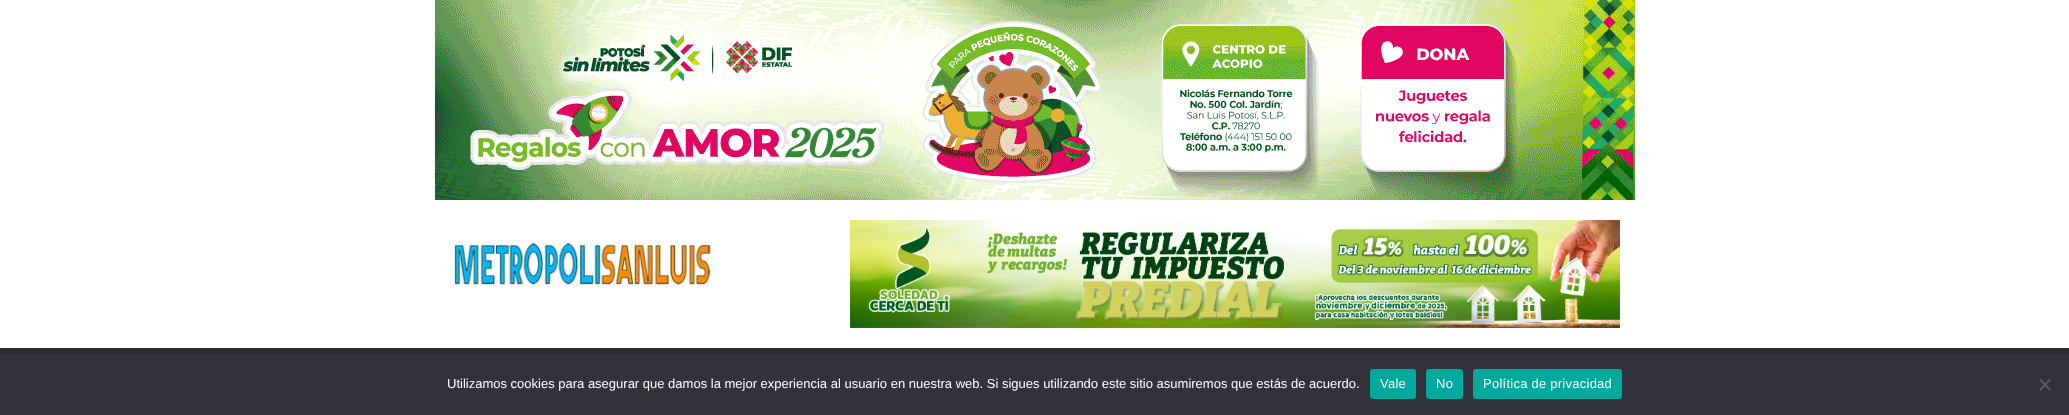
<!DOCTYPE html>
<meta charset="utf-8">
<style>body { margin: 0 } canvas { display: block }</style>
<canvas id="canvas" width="2069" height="415"></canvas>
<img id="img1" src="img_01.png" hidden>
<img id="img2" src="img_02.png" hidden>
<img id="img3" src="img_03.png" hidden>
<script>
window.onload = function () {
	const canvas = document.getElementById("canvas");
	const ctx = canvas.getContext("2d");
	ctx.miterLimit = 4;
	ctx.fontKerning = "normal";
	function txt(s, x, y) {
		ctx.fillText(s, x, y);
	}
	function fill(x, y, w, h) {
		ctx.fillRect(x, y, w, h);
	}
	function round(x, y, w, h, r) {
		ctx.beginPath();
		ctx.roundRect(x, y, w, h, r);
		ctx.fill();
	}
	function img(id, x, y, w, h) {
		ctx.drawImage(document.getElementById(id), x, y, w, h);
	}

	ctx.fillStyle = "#FFFFFF";
	fill(0, 0, 2069, 415);
	img("img1", 435, 0, 1200, 200);
	img("img2", 450, 240, 267, 48);
	img("img3", 850, 220, 770, 108);
	ctx.fillStyle = "#2D2D2D";
	fill(0, 348, 2069, 6);
	ctx.fillStyle = "#32323A";
	fill(0, 354, 2069, 61);
	ctx.fillStyle = "#00A99D";
	round(1370, 369, 46, 30, 3);
	round(1426, 369, 37, 30, 3);
	round(1473, 369, 149, 30, 3);
	ctx.fillStyle = "#59595D";
	ctx.beginPath();
	ctx.moveTo(2049.5, 378.5);
	ctx.lineTo(2051, 380);
	ctx.lineTo(2040.5, 391);
	ctx.lineTo(2039, 389.5);
	ctx.closePath();
	ctx.fill();
	ctx.beginPath();
	ctx.moveTo(2039, 380);
	ctx.lineTo(2040.5, 378.5);
	ctx.lineTo(2051, 389.5);
	ctx.lineTo(2049.5, 391);
	ctx.closePath();
	ctx.fill();
	ctx.font = "13px Liberation Sans";
	ctx.fillStyle = "#FFFFFF";
	txt("Utilizamos cookies para asegurar que damos la mejor experiencia al usuario en nuestra web. Si sigues utilizando este sitio asumiremos que estás de acuerdo.", 447, 388);
	ctx.letterSpacing = "0.25px";
	txt("Vale", 1380, 388);
	txt("No", 1436, 388);
	txt("Política de privacidad", 1483, 388);
};
</script>
